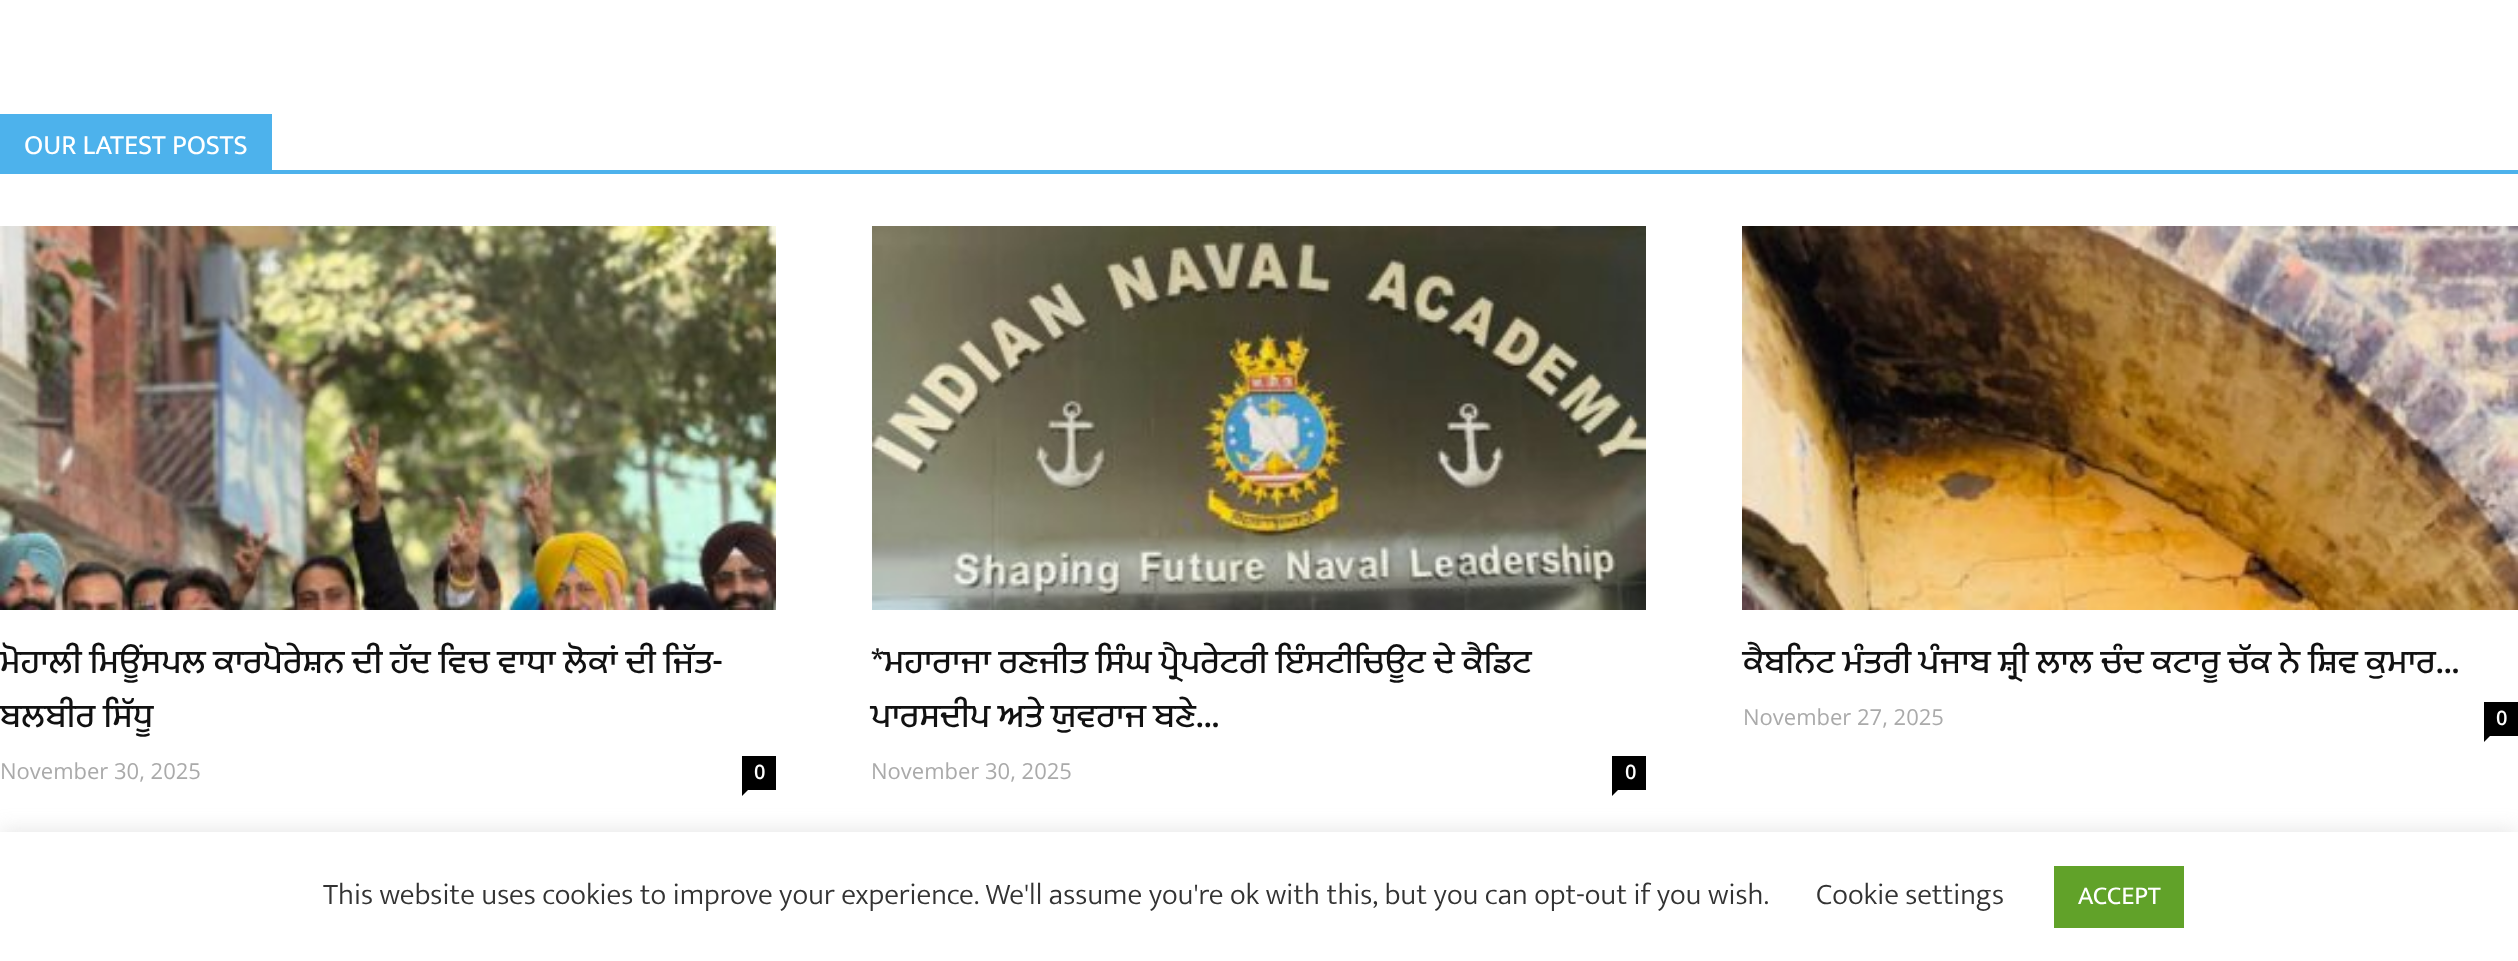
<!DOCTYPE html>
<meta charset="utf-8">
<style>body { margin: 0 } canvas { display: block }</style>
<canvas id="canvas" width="2518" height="961"></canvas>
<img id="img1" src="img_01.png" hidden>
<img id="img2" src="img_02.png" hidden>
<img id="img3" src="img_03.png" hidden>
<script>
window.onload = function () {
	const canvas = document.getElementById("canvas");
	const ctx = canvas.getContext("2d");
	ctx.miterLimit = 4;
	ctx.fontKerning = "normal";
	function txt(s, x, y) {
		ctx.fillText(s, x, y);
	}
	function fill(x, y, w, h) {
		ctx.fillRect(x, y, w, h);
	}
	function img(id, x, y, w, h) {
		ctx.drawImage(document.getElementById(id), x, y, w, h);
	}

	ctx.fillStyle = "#FFFFFF";
	fill(0, 0, 2518, 961);
	ctx.fillStyle = "#4DB2EC";
	fill(0, 170, 2518, 4);
	fill(0, 114, 272, 56);
	img("img1", 0, 226, 776, 384);
	ctx.fillStyle = "#000000";
	fill(742, 756, 34, 34);
	ctx.beginPath();
	ctx.moveTo(742, 790);
	ctx.lineTo(748, 790);
	ctx.lineTo(742, 796);
	ctx.closePath();
	ctx.fill();
	img("img2", 872, 226, 774, 384);
	fill(1612, 756, 34, 34);
	ctx.beginPath();
	ctx.moveTo(1612, 790);
	ctx.lineTo(1618, 790);
	ctx.lineTo(1612, 796);
	ctx.closePath();
	ctx.fill();
	img("img3", 1742, 226, 776, 384);
	fill(2484, 702, 34, 34);
	ctx.beginPath();
	ctx.moveTo(2484, 736);
	ctx.lineTo(2490, 736);
	ctx.lineTo(2484, 742);
	ctx.closePath();
	ctx.fill();
	ctx.fillStyle = "rgba(172, 171, 171, 0.3)";
	ctx.filter = "blur(10px)";
	ctx.beginPath();
	ctx.rect(0, 830, 2518, 130);
	ctx.fill();
	ctx.filter = "none";
	ctx.fillStyle = "#FFFFFF";
	fill(0, 832, 2518, 129);
	ctx.fillStyle = "#61A229";
	fill(2054, 866, 130, 62);
	ctx.font = "28px Mukta Mahee";
	ctx.fillStyle = "#FFFFFF";
	txt("OUR LATEST POSTS", 24, 154);
	ctx.font = "500 36px Mukta Mahee";
	ctx.fillStyle = "#111111";
	txt("ਮੋਹਾਲੀ ਮਿਊਂਸਪਲ ਕਾਰਪੋਰੇਸ਼ਨ ਦੀ ਹੱਦ ਵਿਚ ਵਾਧਾ ਲੋਕਾਂ ਦੀ ਜਿੱਤ-", 0, 673);
	txt("ਬਲਬੀਰ ਸਿੱਧੂ", 0, 727);
	ctx.font = "22px Open Sans";
	ctx.fillStyle = "#AAAAAA";
	txt("November 30, 2025", 0, 779);
	ctx.font = "600 20px Open Sans";
	ctx.fillStyle = "#FFFFFF";
	txt("0", 754, 779);
	ctx.font = "500 36px Mukta Mahee";
	ctx.fillStyle = "#111111";
	txt("*ਮਹਾਰਾਜਾ ਰਣਜੀਤ ਸਿੰਘ ਪ੍ਰੈਪਰੇਟਰੀ ਇੰਸਟੀਚਿਊਟ ਦੇ ਕੈਡਿਟ", 871, 673);
	txt("ਪਾਰਸਦੀਪ ਅਤੇ ਯੁਵਰਾਜ ਬਣੇ...", 871, 727);
	ctx.font = "22px Open Sans";
	ctx.fillStyle = "#AAAAAA";
	txt("November 30, 2025", 871, 779);
	ctx.font = "600 20px Open Sans";
	ctx.fillStyle = "#FFFFFF";
	txt("0", 1625, 779);
	ctx.font = "500 36px Mukta Mahee";
	ctx.fillStyle = "#111111";
	txt("ਕੈਬਨਿਟ ਮੰਤਰੀ ਪੰਜਾਬ ਸ਼੍ਰੀ ਲਾਲ ਚੰਦ ਕਟਾਰੂ ਚੱਕ ਨੇ ਸ਼ਿਵ ਕੁਮਾਰ...", 1743, 673);
	ctx.font = "22px Open Sans";
	ctx.fillStyle = "#AAAAAA";
	txt("November 27, 2025", 1743, 725);
	ctx.font = "600 20px Open Sans";
	ctx.fillStyle = "#FFFFFF";
	txt("0", 2496, 725);
	ctx.font = "300 30px Mukta Mahee";
	ctx.fillStyle = "#333333";
	txt("This website uses cookies to improve your experience. We'll assume you're ok with this, but you can opt-out if you wish.", 323, 904);
	txt("Cookie settings", 1816, 904);
	ctx.font = "26px Mukta Mahee";
	ctx.fillStyle = "#FFFFFF";
	txt("ACCEPT", 2078, 904);
};
</script>
